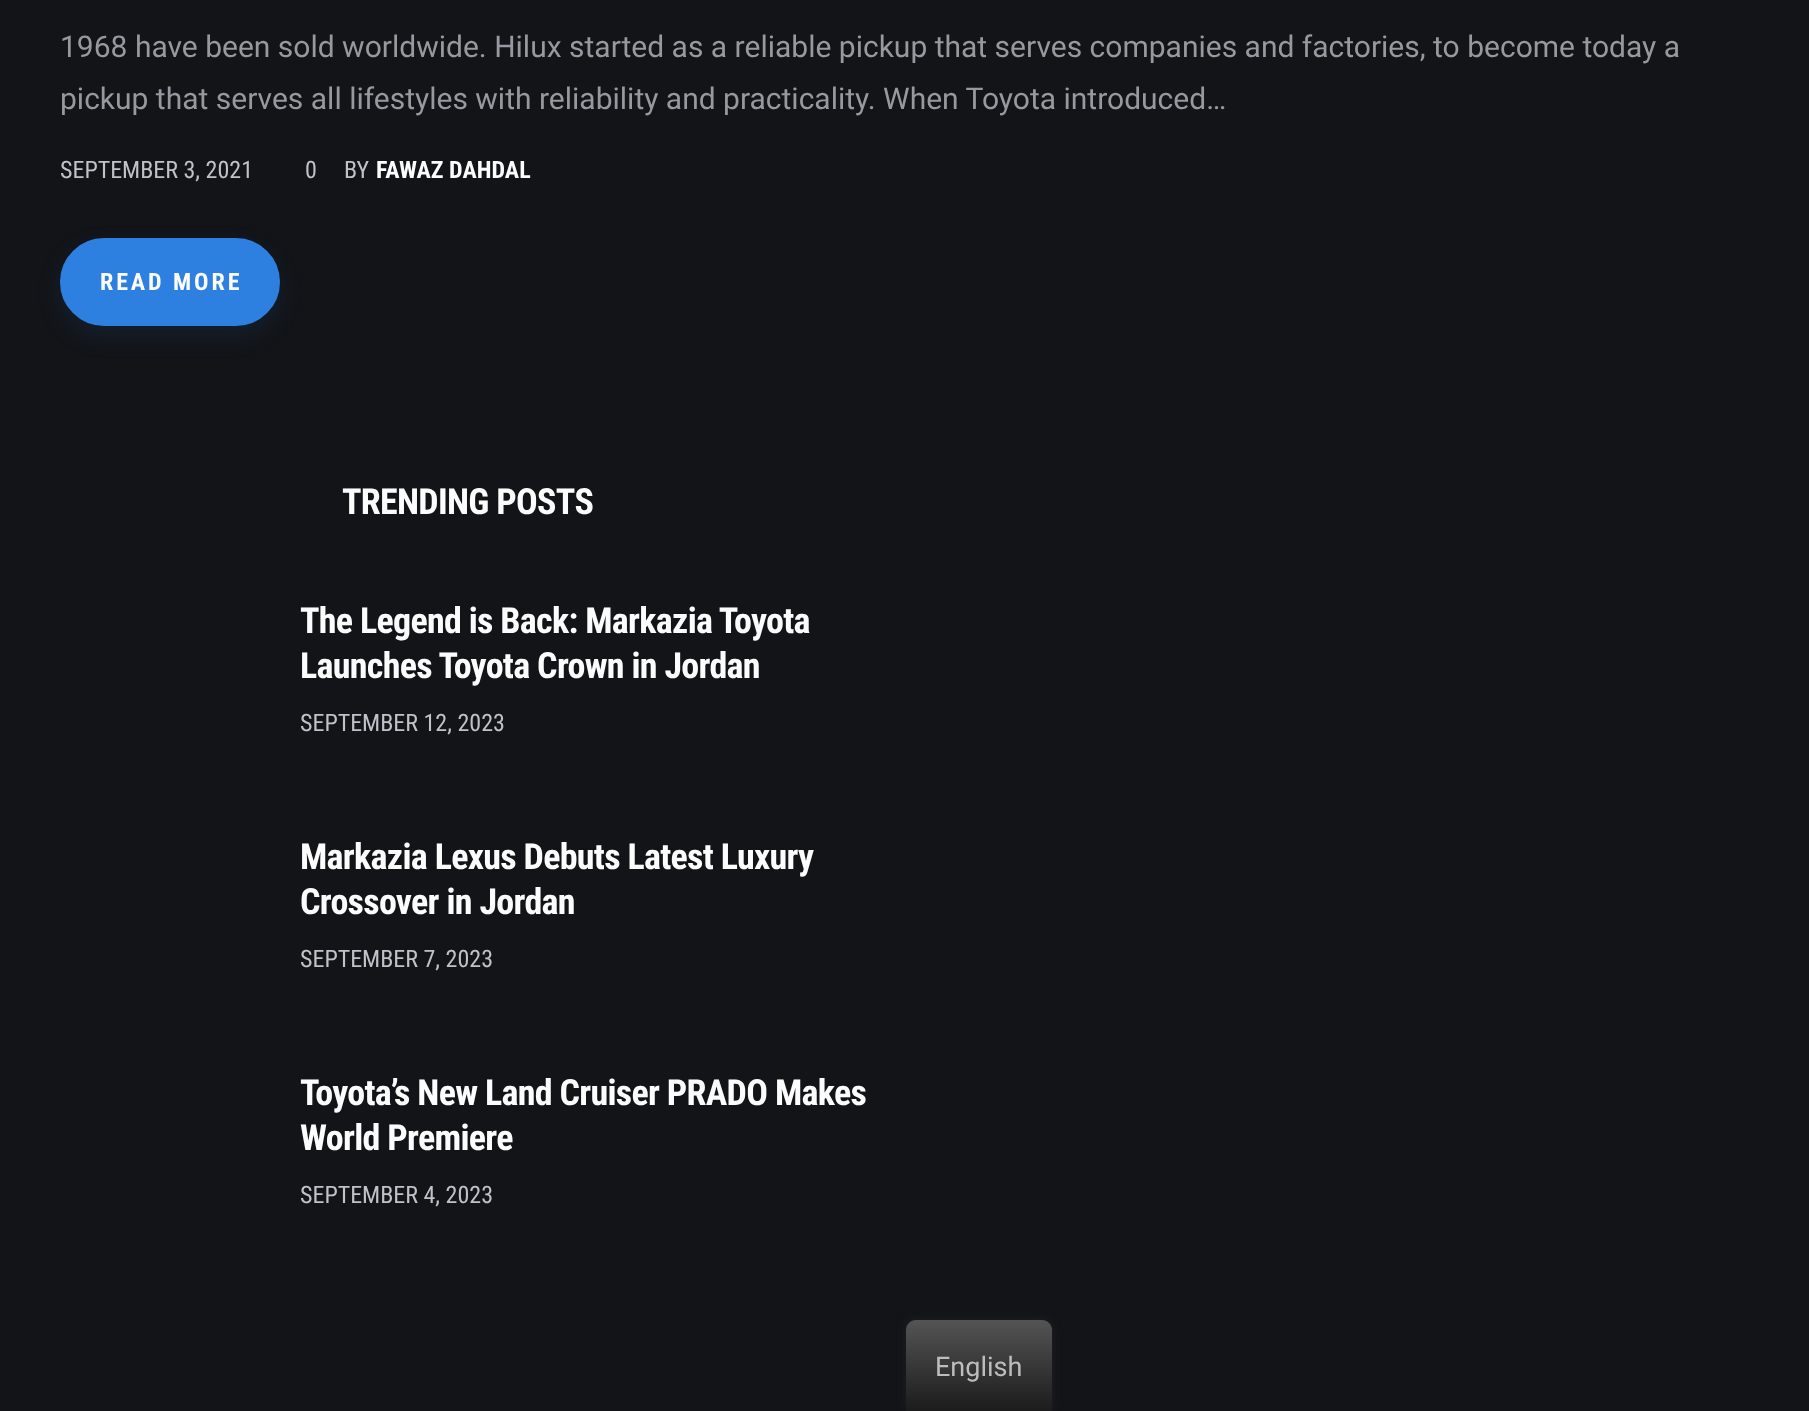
<!DOCTYPE html>
<meta charset="utf-8">
<style>body { margin: 0 } canvas { display: block }</style>
<canvas id="canvas" width="1809" height="1411"></canvas>
<script>
window.onload = function () {
	const canvas = document.getElementById("canvas");
	const ctx = canvas.getContext("2d");
	ctx.miterLimit = 4;
	ctx.fontKerning = "normal";
	function txt(s, x, y) {
		ctx.fillText(s, x, y);
	}
	function fill(x, y, w, h) {
		ctx.fillRect(x, y, w, h);
	}
	let gradient;

	ctx.fillStyle = "#121418";
	fill(0, 0, 1809, 1411);
	ctx.fillStyle = "rgba(45, 127, 224, 0.1)";
	ctx.filter = "blur(12px)";
	ctx.beginPath();
	ctx.roundRect(60, 248, 220, 88, 44);
	ctx.fill();
	ctx.filter = "none";
	ctx.fillStyle = "#2D7FE0";
	ctx.beginPath();
	ctx.roundRect(62, 240, 216, 84, 42);
	ctx.fill();
	ctx.strokeStyle = "#2D7FE0";
	ctx.lineWidth = 4;
	ctx.stroke();
	ctx.fillStyle = "#212121";
	ctx.filter = "blur(5px)";
	ctx.beginPath();
	ctx.roundRect(906, 1320, 146, 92, 10);
	ctx.fill();
	ctx.filter = "none";
	gradient = ctx.createLinearGradient(979, 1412, 979, 1320);
	gradient.addColorStop(0, "#1B1B1B");
	gradient.addColorStop(1, "#545454");
	ctx.fillStyle = gradient;
	ctx.beginPath();
	ctx.moveTo(916, 1320);
	ctx.lineTo(1042, 1320);
	ctx.bezierCurveTo(1047.5, 1320, 1052, 1324.5, 1052, 1330);
	ctx.lineTo(1052, 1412);
	ctx.lineTo(906, 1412);
	ctx.lineTo(906, 1330);
	ctx.bezierCurveTo(906, 1324.5, 910.5, 1320, 916, 1320);
	ctx.closePath();
	ctx.fill();
	ctx.font = "30px Roboto";
	ctx.fillStyle = "#96999F";
	txt("1968 have been sold worldwide. Hilux started as a reliable pickup that serves companies and factories, to become today a", 60, 57);
	txt("pickup that serves all lifestyles with reliability and practicality. When Toyota introduced…", 60, 109);
	ctx.font = "24px Roboto Condensed";
	ctx.fillStyle = "#BFC2C9";
	txt("SEPTEMBER 3, 2021", 60, 178);
	txt("0", 305, 178);
	txt("BY", 344, 178);
	ctx.font = "bold 24px Roboto Condensed";
	ctx.fillStyle = "#FCFCFC";
	txt("FAWAZ DAHDAL", 376, 178);
	ctx.letterSpacing = "2.9px";
	txt("READ MORE", 100, 290);
	ctx.letterSpacing = "-0.7px";
	ctx.font = "bold 36px Roboto Condensed";
	txt("TRENDING POSTS", 342, 514);
	txt("The Legend is Back: Markazia Toyota", 300, 633);
	txt("Launches Toyota Crown in Jordan", 300, 678);
	ctx.letterSpacing = "0px";
	ctx.font = "24px Roboto Condensed";
	ctx.fillStyle = "#BFC2C9";
	txt("SEPTEMBER 12, 2023", 300, 731);
	ctx.letterSpacing = "-0.7px";
	ctx.font = "bold 36px Roboto Condensed";
	ctx.fillStyle = "#FCFCFC";
	txt("Markazia Lexus Debuts Latest Luxury", 300, 869);
	txt("Crossover in Jordan", 300, 914);
	ctx.letterSpacing = "0px";
	ctx.font = "24px Roboto Condensed";
	ctx.fillStyle = "#BFC2C9";
	txt("SEPTEMBER 7, 2023", 300, 967);
	ctx.letterSpacing = "-0.7px";
	ctx.font = "bold 36px Roboto Condensed";
	ctx.fillStyle = "#FCFCFC";
	txt("Toyota’s New Land Cruiser PRADO Makes", 300, 1105);
	txt("World Premiere", 300, 1150);
	ctx.letterSpacing = "0px";
	ctx.font = "24px Roboto Condensed";
	ctx.fillStyle = "#BFC2C9";
	txt("SEPTEMBER 4, 2023", 300, 1203);
	ctx.font = "27px Roboto";
	ctx.fillStyle = "#BDBDBD";
	txt("English", 935, 1376);
};
</script>
